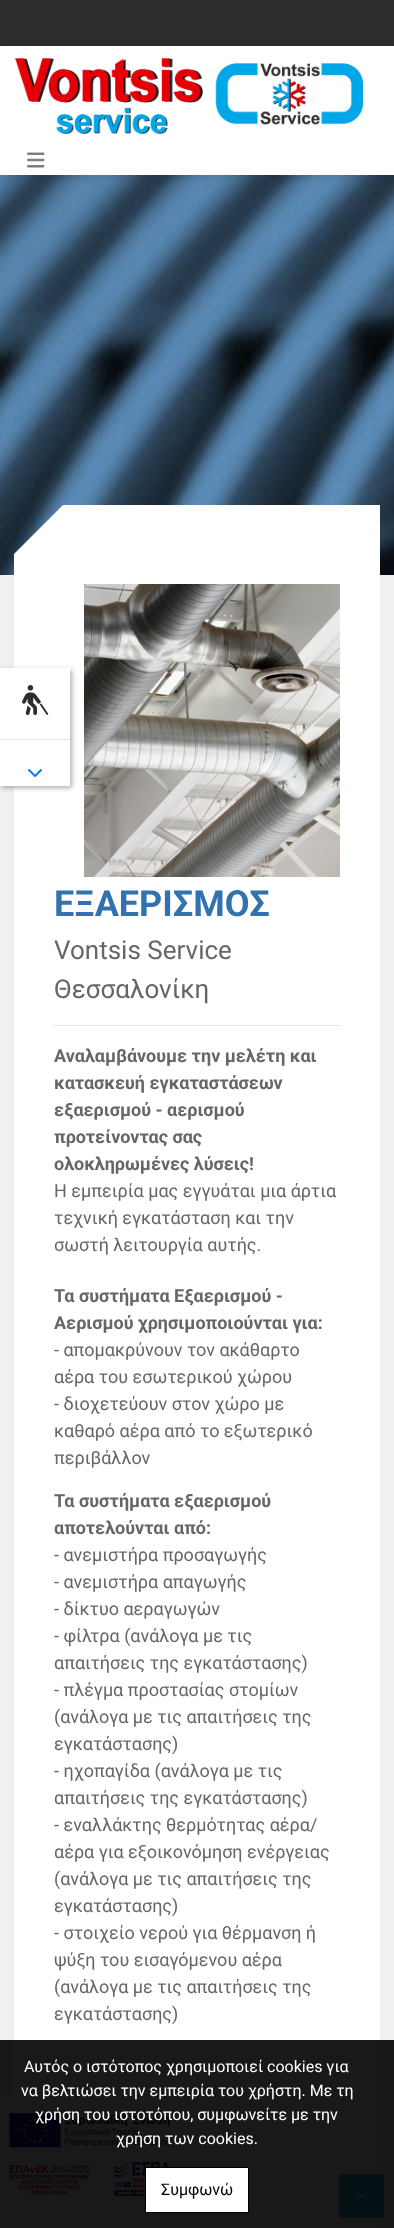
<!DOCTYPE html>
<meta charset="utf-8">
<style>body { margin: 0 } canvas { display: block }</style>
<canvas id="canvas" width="394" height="2228"></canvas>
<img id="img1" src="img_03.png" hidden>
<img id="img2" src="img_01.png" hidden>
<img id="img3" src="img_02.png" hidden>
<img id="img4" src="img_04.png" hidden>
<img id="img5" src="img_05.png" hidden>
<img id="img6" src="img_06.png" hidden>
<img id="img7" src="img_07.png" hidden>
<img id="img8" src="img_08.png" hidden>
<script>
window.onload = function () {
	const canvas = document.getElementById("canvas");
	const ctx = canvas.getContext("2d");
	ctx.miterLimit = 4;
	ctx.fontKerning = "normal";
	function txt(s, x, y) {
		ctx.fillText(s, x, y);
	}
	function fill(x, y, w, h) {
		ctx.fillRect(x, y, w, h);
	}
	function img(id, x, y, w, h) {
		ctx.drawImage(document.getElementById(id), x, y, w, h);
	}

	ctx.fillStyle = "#F0F0F0";
	fill(0, 0, 394, 2228);
	ctx.fillStyle = "#2D2D2D";
	fill(0, 0, 394, 46);
	img("img1", 0, 175, 394, 400);
	ctx.fillStyle = "rgba(0, 0, 0, 0.15)";
	ctx.filter = "blur(5px)";
	ctx.beginPath();
	ctx.rect(0, 46, 394, 129);
	ctx.fill();
	ctx.filter = "none";
	ctx.fillStyle = "#FFFFFF";
	fill(0, 46, 394, 129);
	img("img2", 15, 58, 348, 76);
	img("img3", 27, 152, 18, 16);
	ctx.beginPath();
	ctx.moveTo(14, 554);
	ctx.lineTo(63, 505);
	ctx.lineTo(380, 505);
	ctx.lineTo(380, 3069);
	ctx.lineTo(14, 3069);
	ctx.closePath();
	ctx.fill();
	ctx.fillStyle = "rgba(0, 0, 0, 0.31)";
	ctx.filter = "blur(2.5px)";
	ctx.beginPath();
	ctx.rect(2, 670, 70, 118);
	ctx.fill();
	ctx.filter = "none";
	ctx.fillStyle = "#FFFFFF";
	fill(0, 668, 70, 118);
	img("img4", 22, 685, 27, 30);
	ctx.fillStyle = "#E6E6E6";
	fill(0, 739, 70, 1);
	img("img5", 28, 769, 14, 8);
	img("img6", 0, 2098, 180, 130);
	img("img7", 84, 584, 256, 293);
	fill(54, 1025, 286, 1);
	ctx.fillStyle = "#2EB3E0";
	fill(339, 2174, 45, 44);
	img("img8", 357, 2194, 10, 6);
	ctx.fillStyle = "rgba(0, 0, 0, 0.9)";
	fill(0, 2040, 394, 188);
	ctx.fillStyle = "#FFFFFF";
	ctx.beginPath();
	ctx.rect(145.5, 2167.5, 103, 45);
	ctx.fill();
	ctx.strokeStyle = "#000000";
	ctx.stroke();
	ctx.font = "bold 36px Roboto";
	ctx.fillStyle = "#3273AF";
	txt("ΕΞΑΕΡΙΣΜΟΣ", 54, 916);
	ctx.font = "26px Roboto";
	ctx.fillStyle = "#666666";
	txt("Vontsis Service", 54, 959);
	txt("Θεσσαλονίκη", 54, 998);
	ctx.font = "bold 18px Roboto";
	txt("Αναλαμβάνουμε την μελέτη και", 54, 1062);
	txt("κατασκευή εγκαταστάσεων", 54, 1089);
	txt("εξαερισμού - αερισμού", 54, 1116);
	txt("προτείνοντας σας", 54, 1143);
	txt("ολοκληρωμένες λύσεις!", 54, 1170);
	ctx.font = "18px Roboto";
	txt("Η εμπειρία μας εγγυάται μια άρτια", 54, 1197);
	txt("τεχνική εγκατάσταση και την", 54, 1224);
	txt("σωστή λειτουργία αυτής.", 54, 1251);
	ctx.font = "bold 18px Roboto";
	txt("Τα συστήματα Εξαερισμού -", 54, 1302);
	txt("Αερισμού χρησιμοποιούνται για:", 54, 1329);
	ctx.font = "18px Roboto";
	txt("- απομακρύνουν τον ακάθαρτο", 54, 1356);
	txt("αέρα του εσωτερικού χώρου", 54, 1383);
	txt("- διοχετεύουν στον χώρο με", 54, 1410);
	txt("καθαρό αέρα από το εξωτερικό", 54, 1437);
	txt("περιβάλλον", 54, 1464);
	ctx.font = "bold 18px Roboto";
	txt("Τα συστήματα εξαερισμού", 54, 1507);
	txt("αποτελούνται από:", 54, 1534);
	ctx.font = "18px Roboto";
	txt("- ανεμιστήρα προσαγωγής", 54, 1561);
	txt("- ανεμιστήρα απαγωγής", 54, 1588);
	txt("- δίκτυο αεραγωγών", 54, 1615);
	txt("- φίλτρα (ανάλογα με τις", 54, 1642);
	txt("απαιτήσεις της εγκατάστασης)", 54, 1669);
	txt("- πλέγμα προστασίας στομίων", 54, 1696);
	txt("(ανάλογα με τις απαιτήσεις της", 54, 1723);
	txt("εγκατάστασης)", 54, 1750);
	txt("- ηχοπαγίδα (ανάλογα με τις", 54, 1777);
	txt("απαιτήσεις της εγκατάστασης)", 54, 1804);
	txt("- εναλλάκτης θερμότητας αέρα/", 54, 1831);
	txt("αέρα για εξοικονόμηση ενέργειας", 54, 1858);
	txt("(ανάλογα με τις απαιτήσεις της", 54, 1885);
	txt("εγκατάστασης)", 54, 1912);
	txt("- στοιχείο νερού για θέρμανση ή", 54, 1939);
	txt("ψύξη του εισαγόμενου αέρα", 54, 1966);
	txt("(ανάλογα με τις απαιτήσεις της", 54, 1993);
	txt("εγκατάστασης)", 54, 2020);
	ctx.font = "16px Roboto";
	ctx.fillStyle = "#FFFFFF";
	txt("Αυτός ο ιστότοπος χρησιμοποιεί cookies για", 24, 2072);
	txt("να βελτιώσει την εμπειρία του χρήστη. Με τη", 21, 2096);
	txt("χρήση του ιστοτόπου, συμφωνείτε με την", 35, 2120);
	txt("χρήση των cookies.", 116, 2144);
	ctx.fillStyle = "#000000";
	txt("Συμφωνώ", 161, 2195);
};
</script>
